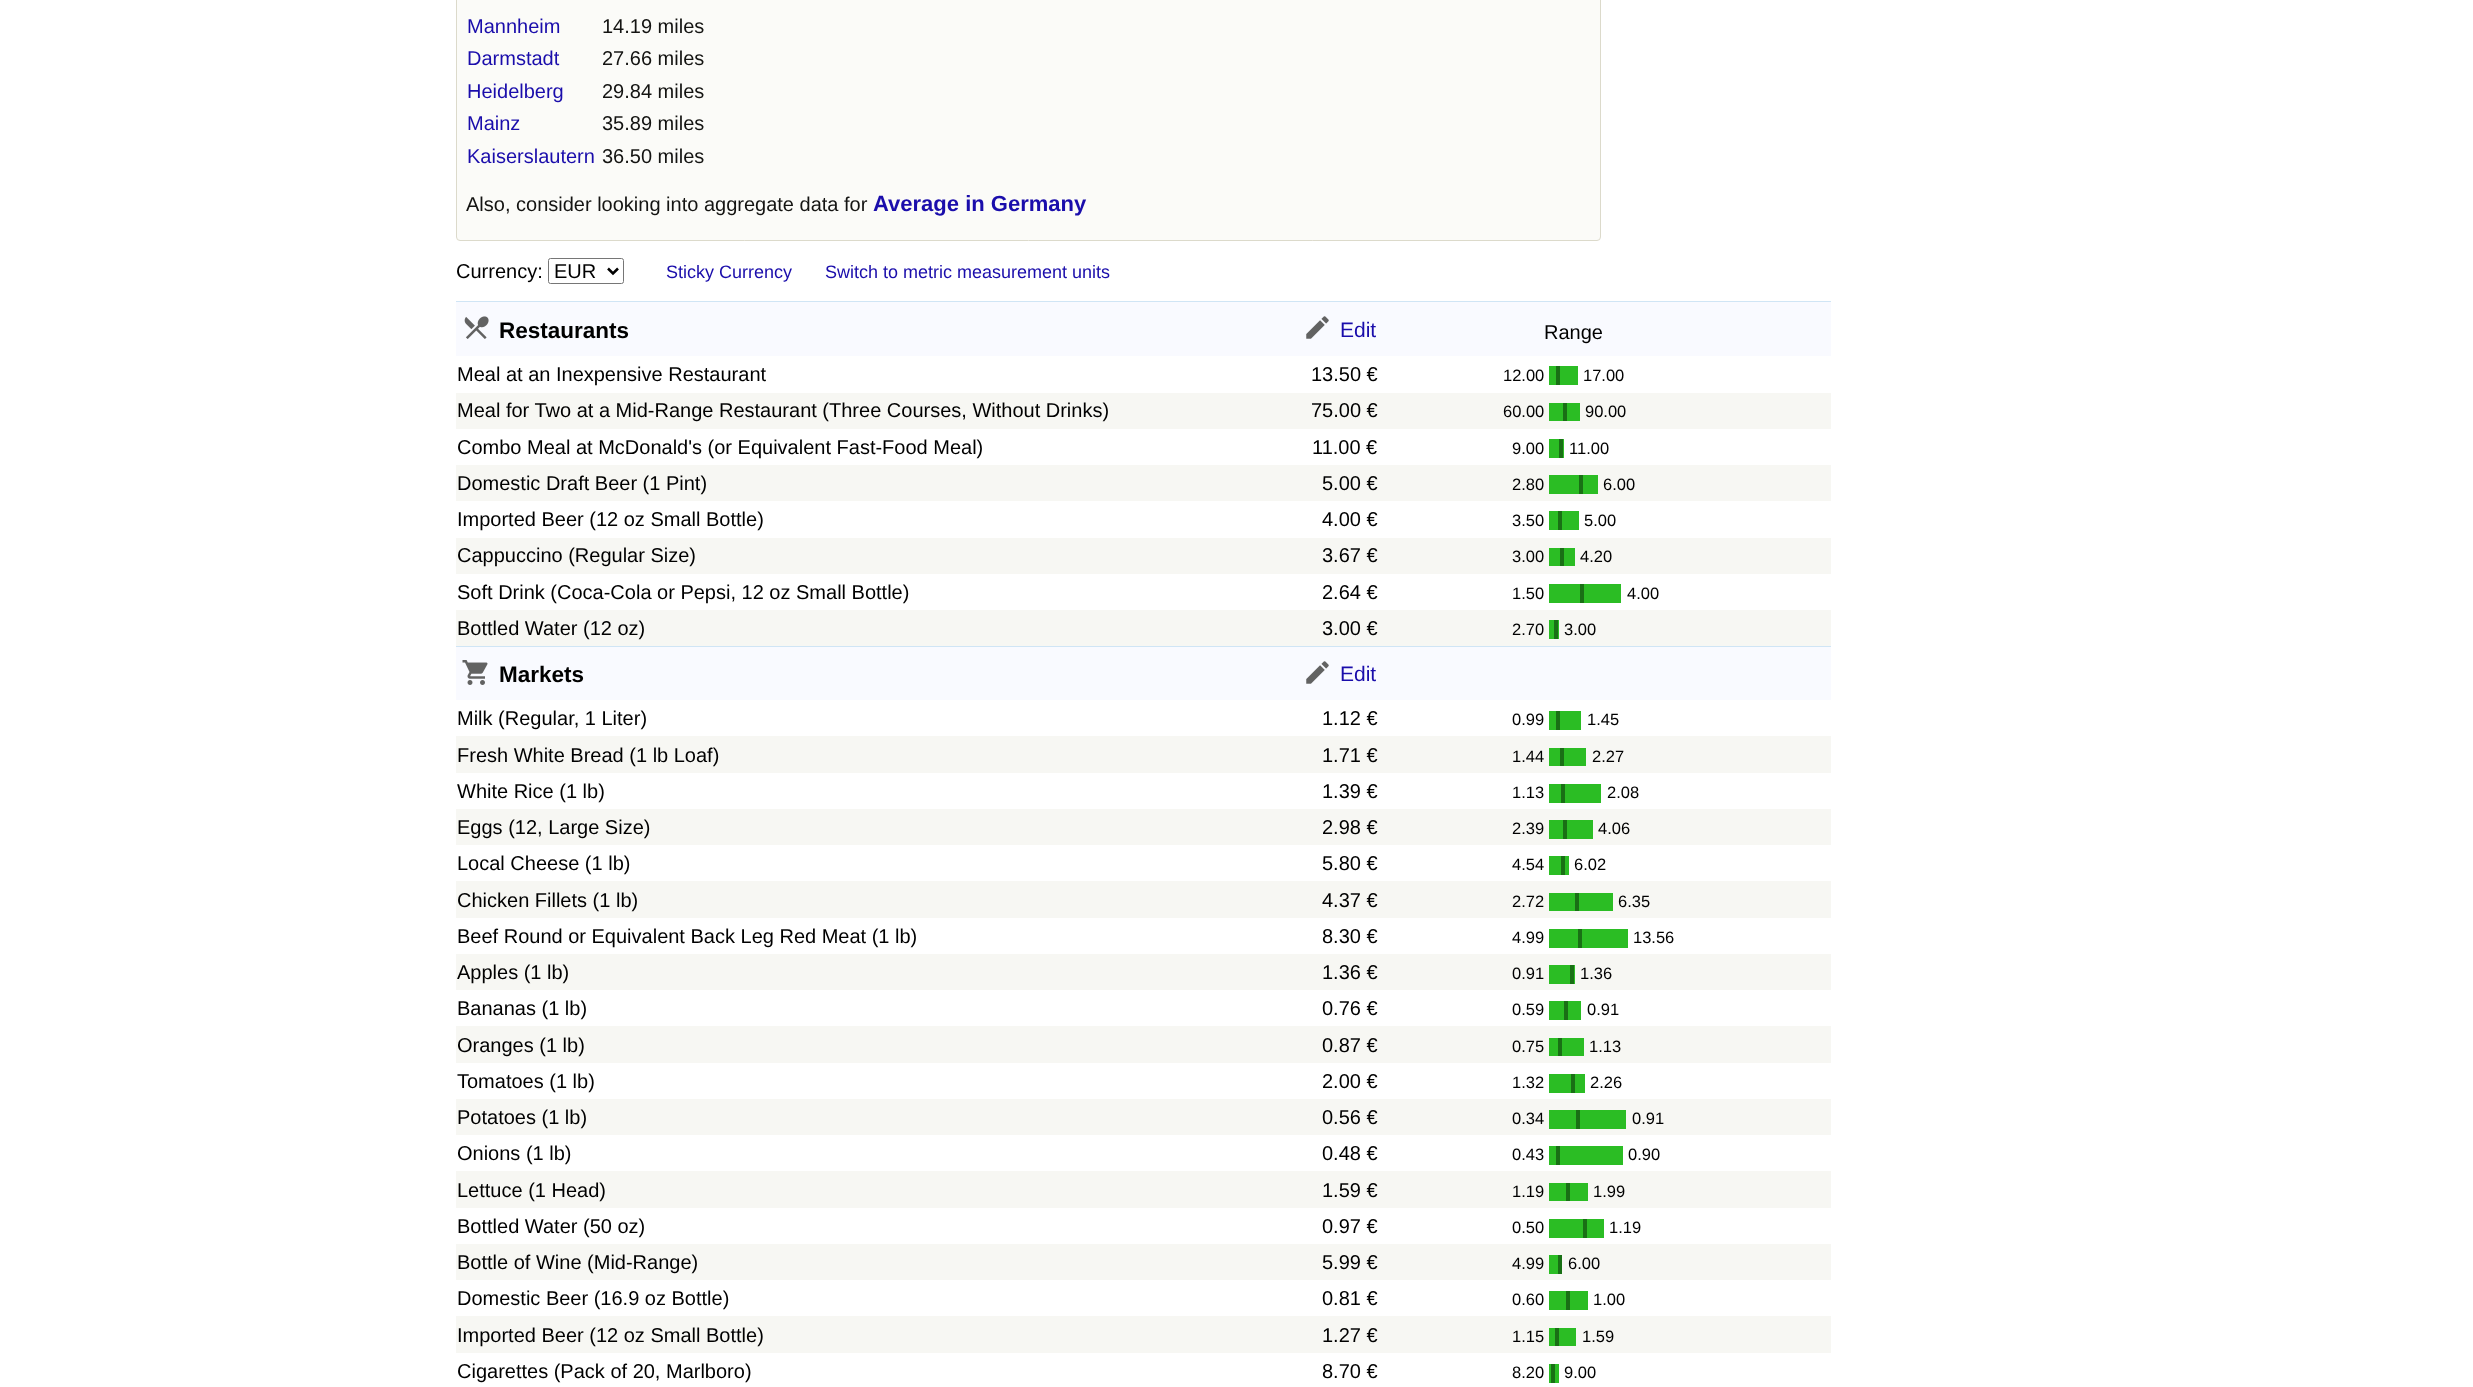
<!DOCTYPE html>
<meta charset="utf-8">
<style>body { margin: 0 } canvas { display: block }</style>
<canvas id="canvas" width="2473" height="1387"></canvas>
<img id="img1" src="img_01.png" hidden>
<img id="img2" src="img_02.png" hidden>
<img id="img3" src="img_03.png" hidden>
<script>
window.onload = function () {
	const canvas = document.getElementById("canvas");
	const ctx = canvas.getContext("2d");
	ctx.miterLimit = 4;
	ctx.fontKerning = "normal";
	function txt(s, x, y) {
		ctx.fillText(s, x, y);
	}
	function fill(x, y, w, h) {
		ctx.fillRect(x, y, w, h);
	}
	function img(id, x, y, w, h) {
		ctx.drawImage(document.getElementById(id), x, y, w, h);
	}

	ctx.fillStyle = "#FFFFFF";
	fill(0, 0, 2473, 1387);
	ctx.fillStyle = "#FBFBF8";
	ctx.beginPath();
	ctx.roundRect(456.5, -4.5, 1144, 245, 3.5);
	ctx.fill();
	ctx.strokeStyle = "#DCDACB";
	ctx.stroke();
	ctx.beginPath();
	ctx.roundRect(548.5, 258.5, 75, 25, 2);
	ctx.strokeStyle = "#767676";
	ctx.stroke();
	ctx.beginPath();
	ctx.moveTo(608, 268.5);
	ctx.lineTo(613, 273.5);
	ctx.lineTo(618, 268.5);
	ctx.strokeStyle = "#000000";
	ctx.lineWidth = 2.5;
	ctx.stroke();
	ctx.fillStyle = "#F9FAFF";
	fill(456, 302, 1375, 54);
	ctx.fillStyle = "#D0E5F5";
	fill(456, 301, 1375, 1);
	img("img1", 464, 316, 25, 23);
	img("img2", 1306, 316, 23, 23);
	ctx.fillStyle = "#2BBD24";
	fill(1549, 366, 7, 19);
	ctx.fillStyle = "#197015";
	fill(1556, 366, 4, 19);
	ctx.fillStyle = "#2BBD24";
	fill(1560, 366, 18, 19);
	ctx.fillStyle = "#F7F7F3";
	fill(456, 393, 1375, 36);
	ctx.fillStyle = "#2BBD24";
	fill(1549, 403, 14, 18);
	ctx.fillStyle = "#197015";
	fill(1563, 403, 4, 18);
	ctx.fillStyle = "#2BBD24";
	fill(1567, 403, 13, 18);
	fill(1549, 439, 10, 19);
	ctx.fillStyle = "#197015";
	fill(1559, 439, 4, 19);
	ctx.fillStyle = "#2BBD24";
	fill(1563, 439, 1, 19);
	ctx.fillStyle = "#F7F7F3";
	fill(456, 465, 1375, 36);
	ctx.fillStyle = "#2BBD24";
	fill(1549, 475, 30, 19);
	ctx.fillStyle = "#197015";
	fill(1579, 475, 4, 19);
	ctx.fillStyle = "#2BBD24";
	fill(1583, 475, 15, 19);
	fill(1549, 511, 9, 19);
	ctx.fillStyle = "#197015";
	fill(1558, 511, 4, 19);
	ctx.fillStyle = "#2BBD24";
	fill(1562, 511, 17, 19);
	ctx.fillStyle = "#F7F7F3";
	fill(456, 538, 1375, 36);
	ctx.fillStyle = "#2BBD24";
	fill(1549, 548, 11, 18);
	ctx.fillStyle = "#197015";
	fill(1560, 548, 4, 18);
	ctx.fillStyle = "#2BBD24";
	fill(1564, 548, 11, 18);
	fill(1549, 584, 31, 19);
	ctx.fillStyle = "#197015";
	fill(1580, 584, 4, 19);
	ctx.fillStyle = "#2BBD24";
	fill(1584, 584, 37, 19);
	ctx.fillStyle = "#F7F7F3";
	fill(456, 610, 1375, 36);
	ctx.fillStyle = "#2BBD24";
	fill(1549, 620, 5, 19);
	ctx.fillStyle = "#197015";
	fill(1554, 620, 4, 19);
	ctx.fillStyle = "#2BBD24";
	fill(1558, 620, 1, 19);
	ctx.fillStyle = "#F9FAFF";
	fill(456, 647, 1375, 53);
	ctx.fillStyle = "#D0E5F5";
	fill(456, 646, 1375, 1);
	img("img3", 462, 660, 26, 25);
	img("img2", 1306, 661, 23, 23);
	ctx.fillStyle = "#2BBD24";
	fill(1549, 711, 7, 19);
	ctx.fillStyle = "#197015";
	fill(1556, 711, 4, 19);
	ctx.fillStyle = "#2BBD24";
	fill(1560, 711, 21, 19);
	ctx.fillStyle = "#F7F7F3";
	fill(456, 736, 1375, 37);
	ctx.fillStyle = "#2BBD24";
	fill(1549, 748, 11, 18);
	ctx.fillStyle = "#197015";
	fill(1560, 748, 4, 18);
	ctx.fillStyle = "#2BBD24";
	fill(1564, 748, 22, 18);
	fill(1549, 784, 12, 19);
	ctx.fillStyle = "#197015";
	fill(1561, 784, 4, 19);
	ctx.fillStyle = "#2BBD24";
	fill(1565, 784, 36, 19);
	ctx.fillStyle = "#F7F7F3";
	fill(456, 809, 1375, 36);
	ctx.fillStyle = "#2BBD24";
	fill(1549, 820, 14, 19);
	ctx.fillStyle = "#197015";
	fill(1563, 820, 4, 19);
	ctx.fillStyle = "#2BBD24";
	fill(1567, 820, 26, 19);
	fill(1549, 856, 12, 19);
	ctx.fillStyle = "#197015";
	fill(1561, 856, 4, 19);
	ctx.fillStyle = "#2BBD24";
	fill(1565, 856, 4, 19);
	ctx.fillStyle = "#F7F7F3";
	fill(456, 881, 1375, 37);
	ctx.fillStyle = "#2BBD24";
	fill(1549, 893, 26, 18);
	ctx.fillStyle = "#197015";
	fill(1575, 893, 4, 18);
	ctx.fillStyle = "#2BBD24";
	fill(1579, 893, 34, 18);
	fill(1549, 929, 29, 19);
	ctx.fillStyle = "#197015";
	fill(1578, 929, 4, 19);
	ctx.fillStyle = "#2BBD24";
	fill(1582, 929, 46, 19);
	ctx.fillStyle = "#F7F7F3";
	fill(456, 954, 1375, 36);
	ctx.fillStyle = "#2BBD24";
	fill(1549, 965, 21, 19);
	ctx.fillStyle = "#197015";
	fill(1570, 965, 4, 19);
	ctx.fillStyle = "#2BBD24";
	fill(1574, 965, 1, 19);
	fill(1549, 1001, 15, 19);
	ctx.fillStyle = "#197015";
	fill(1564, 1001, 4, 19);
	ctx.fillStyle = "#2BBD24";
	fill(1568, 1001, 13, 19);
	ctx.fillStyle = "#F7F7F3";
	fill(456, 1026, 1375, 37);
	ctx.fillStyle = "#2BBD24";
	fill(1549, 1038, 9, 18);
	ctx.fillStyle = "#197015";
	fill(1558, 1038, 4, 18);
	ctx.fillStyle = "#2BBD24";
	fill(1562, 1038, 22, 18);
	fill(1549, 1074, 22, 19);
	ctx.fillStyle = "#197015";
	fill(1571, 1074, 4, 19);
	ctx.fillStyle = "#2BBD24";
	fill(1575, 1074, 10, 19);
	ctx.fillStyle = "#F7F7F3";
	fill(456, 1099, 1375, 36);
	ctx.fillStyle = "#2BBD24";
	fill(1549, 1110, 27, 19);
	ctx.fillStyle = "#197015";
	fill(1576, 1110, 4, 19);
	ctx.fillStyle = "#2BBD24";
	fill(1580, 1110, 46, 19);
	fill(1549, 1146, 7, 19);
	ctx.fillStyle = "#197015";
	fill(1556, 1146, 4, 19);
	ctx.fillStyle = "#2BBD24";
	fill(1560, 1146, 63, 19);
	ctx.fillStyle = "#F7F7F3";
	fill(456, 1171, 1375, 37);
	ctx.fillStyle = "#2BBD24";
	fill(1549, 1183, 17, 18);
	ctx.fillStyle = "#197015";
	fill(1566, 1183, 4, 18);
	ctx.fillStyle = "#2BBD24";
	fill(1570, 1183, 18, 18);
	fill(1549, 1219, 34, 19);
	ctx.fillStyle = "#197015";
	fill(1583, 1219, 4, 19);
	ctx.fillStyle = "#2BBD24";
	fill(1587, 1219, 17, 19);
	ctx.fillStyle = "#F7F7F3";
	fill(456, 1244, 1375, 36);
	ctx.fillStyle = "#2BBD24";
	fill(1549, 1255, 9, 19);
	ctx.fillStyle = "#197015";
	fill(1558, 1255, 4, 19);
	ctx.fillStyle = "#2BBD24";
	fill(1549, 1291, 17, 19);
	ctx.fillStyle = "#197015";
	fill(1566, 1291, 4, 19);
	ctx.fillStyle = "#2BBD24";
	fill(1570, 1291, 18, 19);
	ctx.fillStyle = "#F7F7F3";
	fill(456, 1316, 1375, 37);
	ctx.fillStyle = "#2BBD24";
	fill(1549, 1328, 6, 18);
	ctx.fillStyle = "#197015";
	fill(1555, 1328, 4, 18);
	ctx.fillStyle = "#2BBD24";
	fill(1559, 1328, 17, 18);
	fill(1549, 1364, 2, 19);
	ctx.fillStyle = "#197015";
	fill(1551, 1364, 4, 19);
	ctx.fillStyle = "#2BBD24";
	fill(1555, 1364, 4, 19);
	ctx.font = "20px Liberation Sans";
	ctx.fillStyle = "#1A0DAB";
	txt("Mannheim", 467, 33);
	ctx.fillStyle = "#141412";
	txt("14.19 miles", 602, 33);
	ctx.fillStyle = "#1A0DAB";
	txt("Darmstadt", 467, 65);
	ctx.fillStyle = "#141412";
	txt("27.66 miles", 602, 65);
	ctx.fillStyle = "#1A0DAB";
	txt("Heidelberg", 467, 98);
	ctx.fillStyle = "#141412";
	txt("29.84 miles", 602, 98);
	ctx.fillStyle = "#1A0DAB";
	txt("Mainz", 467, 130);
	ctx.fillStyle = "#141412";
	txt("35.89 miles", 602, 130);
	ctx.fillStyle = "#1A0DAB";
	txt("Kaiserslautern", 467, 163);
	ctx.fillStyle = "#141412";
	txt("36.50 miles", 602, 163);
	txt("Also, consider looking into aggregate data for", 466, 211);
	ctx.font = "bold 22px Liberation Sans";
	ctx.fillStyle = "#1A0DAB";
	txt("Average in Germany", 873, 211);
	ctx.font = "20px Liberation Sans";
	ctx.fillStyle = "#000000";
	txt("Currency:", 456, 278);
	txt("EUR", 554, 278);
	ctx.font = "18px Liberation Sans";
	ctx.fillStyle = "#1A0DAB";
	txt("Sticky Currency", 666, 278);
	txt("Switch to metric measurement units", 825, 278);
	ctx.font = "bold 22.5px Liberation Sans";
	ctx.fillStyle = "#000000";
	txt("Restaurants", 499, 338);
	ctx.font = "21px Liberation Sans";
	ctx.fillStyle = "#1A0DAB";
	txt("Edit", 1340, 337);
	ctx.font = "20px Liberation Sans";
	ctx.fillStyle = "#000000";
	txt("Range", 1544, 339);
	txt("Meal at an Inexpensive Restaurant", 457, 381);
	txt("13.50 €", 1311, 381);
	ctx.font = "16.5px Liberation Sans";
	txt("12.00", 1503, 381);
	txt("17.00", 1583, 381);
	ctx.font = "20px Liberation Sans";
	txt("Meal for Two at a Mid-Range Restaurant (Three Courses, Without Drinks)", 457, 417);
	txt("75.00 €", 1311, 417);
	ctx.font = "16.5px Liberation Sans";
	txt("60.00", 1503, 417);
	txt("90.00", 1585, 417);
	ctx.font = "20px Liberation Sans";
	txt("Combo Meal at McDonald's (or Equivalent Fast-Food Meal)", 457, 454);
	txt("11.00 €", 1312, 454);
	ctx.font = "16.5px Liberation Sans";
	txt("9.00", 1512, 454);
	txt("11.00", 1569, 454);
	ctx.font = "20px Liberation Sans";
	txt("Domestic Draft Beer (1 Pint)", 457, 490);
	txt("5.00 €", 1322, 490);
	ctx.font = "16.5px Liberation Sans";
	txt("2.80", 1512, 490);
	txt("6.00", 1603, 490);
	ctx.font = "20px Liberation Sans";
	txt("Imported Beer (12 oz Small Bottle)", 457, 526);
	txt("4.00 €", 1322, 526);
	ctx.font = "16.5px Liberation Sans";
	txt("3.50", 1512, 526);
	txt("5.00", 1584, 526);
	ctx.font = "20px Liberation Sans";
	txt("Cappuccino (Regular Size)", 457, 562);
	txt("3.67 €", 1322, 562);
	ctx.font = "16.5px Liberation Sans";
	txt("3.00", 1512, 562);
	txt("4.20", 1580, 562);
	ctx.font = "20px Liberation Sans";
	txt("Soft Drink (Coca-Cola or Pepsi, 12 oz Small Bottle)", 457, 599);
	txt("2.64 €", 1322, 599);
	ctx.font = "16.5px Liberation Sans";
	txt("1.50", 1512, 599);
	txt("4.00", 1627, 599);
	ctx.font = "20px Liberation Sans";
	txt("Bottled Water (12 oz)", 457, 635);
	txt("3.00 €", 1322, 635);
	ctx.font = "16.5px Liberation Sans";
	txt("2.70", 1512, 635);
	txt("3.00", 1564, 635);
	ctx.font = "bold 22.5px Liberation Sans";
	txt("Markets", 499, 682);
	ctx.font = "21px Liberation Sans";
	ctx.fillStyle = "#1A0DAB";
	txt("Edit", 1340, 681);
	ctx.font = "20px Liberation Sans";
	ctx.fillStyle = "#000000";
	txt("Milk (Regular, 1 Liter)", 457, 725);
	txt("1.12 €", 1322, 725);
	ctx.font = "16.5px Liberation Sans";
	txt("0.99", 1512, 725);
	txt("1.45", 1587, 725);
	ctx.font = "20px Liberation Sans";
	txt("Fresh White Bread (1 lb Loaf)", 457, 762);
	txt("1.71 €", 1322, 762);
	ctx.font = "16.5px Liberation Sans";
	txt("1.44", 1512, 762);
	txt("2.27", 1592, 762);
	ctx.font = "20px Liberation Sans";
	txt("White Rice (1 lb)", 457, 798);
	txt("1.39 €", 1322, 798);
	ctx.font = "16.5px Liberation Sans";
	txt("1.13", 1512, 798);
	txt("2.08", 1607, 798);
	ctx.font = "20px Liberation Sans";
	txt("Eggs (12, Large Size)", 457, 834);
	txt("2.98 €", 1322, 834);
	ctx.font = "16.5px Liberation Sans";
	txt("2.39", 1512, 834);
	txt("4.06", 1598, 834);
	ctx.font = "20px Liberation Sans";
	txt("Local Cheese (1 lb)", 457, 870);
	txt("5.80 €", 1322, 870);
	ctx.font = "16.5px Liberation Sans";
	txt("4.54", 1512, 870);
	txt("6.02", 1574, 870);
	ctx.font = "20px Liberation Sans";
	txt("Chicken Fillets (1 lb)", 457, 907);
	txt("4.37 €", 1322, 907);
	ctx.font = "16.5px Liberation Sans";
	txt("2.72", 1512, 907);
	txt("6.35", 1618, 907);
	ctx.font = "20px Liberation Sans";
	txt("Beef Round or Equivalent Back Leg Red Meat (1 lb)", 457, 943);
	txt("8.30 €", 1322, 943);
	ctx.font = "16.5px Liberation Sans";
	txt("4.99", 1512, 943);
	txt("13.56", 1633, 943);
	ctx.font = "20px Liberation Sans";
	txt("Apples (1 lb)", 457, 979);
	txt("1.36 €", 1322, 979);
	ctx.font = "16.5px Liberation Sans";
	txt("0.91", 1512, 979);
	txt("1.36", 1580, 979);
	ctx.font = "20px Liberation Sans";
	txt("Bananas (1 lb)", 457, 1015);
	txt("0.76 €", 1322, 1015);
	ctx.font = "16.5px Liberation Sans";
	txt("0.59", 1512, 1015);
	txt("0.91", 1587, 1015);
	ctx.font = "20px Liberation Sans";
	txt("Oranges (1 lb)", 457, 1052);
	txt("0.87 €", 1322, 1052);
	ctx.font = "16.5px Liberation Sans";
	txt("0.75", 1512, 1052);
	txt("1.13", 1589, 1052);
	ctx.font = "20px Liberation Sans";
	txt("Tomatoes (1 lb)", 457, 1088);
	txt("2.00 €", 1322, 1088);
	ctx.font = "16.5px Liberation Sans";
	txt("1.32", 1512, 1088);
	txt("2.26", 1590, 1088);
	ctx.font = "20px Liberation Sans";
	txt("Potatoes (1 lb)", 457, 1124);
	txt("0.56 €", 1322, 1124);
	ctx.font = "16.5px Liberation Sans";
	txt("0.34", 1512, 1124);
	txt("0.91", 1632, 1124);
	ctx.font = "20px Liberation Sans";
	txt("Onions (1 lb)", 457, 1160);
	txt("0.48 €", 1322, 1160);
	ctx.font = "16.5px Liberation Sans";
	txt("0.43", 1512, 1160);
	txt("0.90", 1628, 1160);
	ctx.font = "20px Liberation Sans";
	txt("Lettuce (1 Head)", 457, 1197);
	txt("1.59 €", 1322, 1197);
	ctx.font = "16.5px Liberation Sans";
	txt("1.19", 1512, 1197);
	txt("1.99", 1593, 1197);
	ctx.font = "20px Liberation Sans";
	txt("Bottled Water (50 oz)", 457, 1233);
	txt("0.97 €", 1322, 1233);
	ctx.font = "16.5px Liberation Sans";
	txt("0.50", 1512, 1233);
	txt("1.19", 1609, 1233);
	ctx.font = "20px Liberation Sans";
	txt("Bottle of Wine (Mid-Range)", 457, 1269);
	txt("5.99 €", 1322, 1269);
	ctx.font = "16.5px Liberation Sans";
	txt("4.99", 1512, 1269);
	txt("6.00", 1568, 1269);
	ctx.font = "20px Liberation Sans";
	txt("Domestic Beer (16.9 oz Bottle)", 457, 1305);
	txt("0.81 €", 1322, 1305);
	ctx.font = "16.5px Liberation Sans";
	txt("0.60", 1512, 1305);
	txt("1.00", 1593, 1305);
	ctx.font = "20px Liberation Sans";
	txt("Imported Beer (12 oz Small Bottle)", 457, 1342);
	txt("1.27 €", 1322, 1342);
	ctx.font = "16.5px Liberation Sans";
	txt("1.15", 1512, 1342);
	txt("1.59", 1582, 1342);
	ctx.font = "20px Liberation Sans";
	txt("Cigarettes (Pack of 20, Marlboro)", 457, 1378);
	txt("8.70 €", 1322, 1378);
	ctx.font = "16.5px Liberation Sans";
	txt("8.20", 1512, 1378);
	txt("9.00", 1564, 1378);
};
</script>
